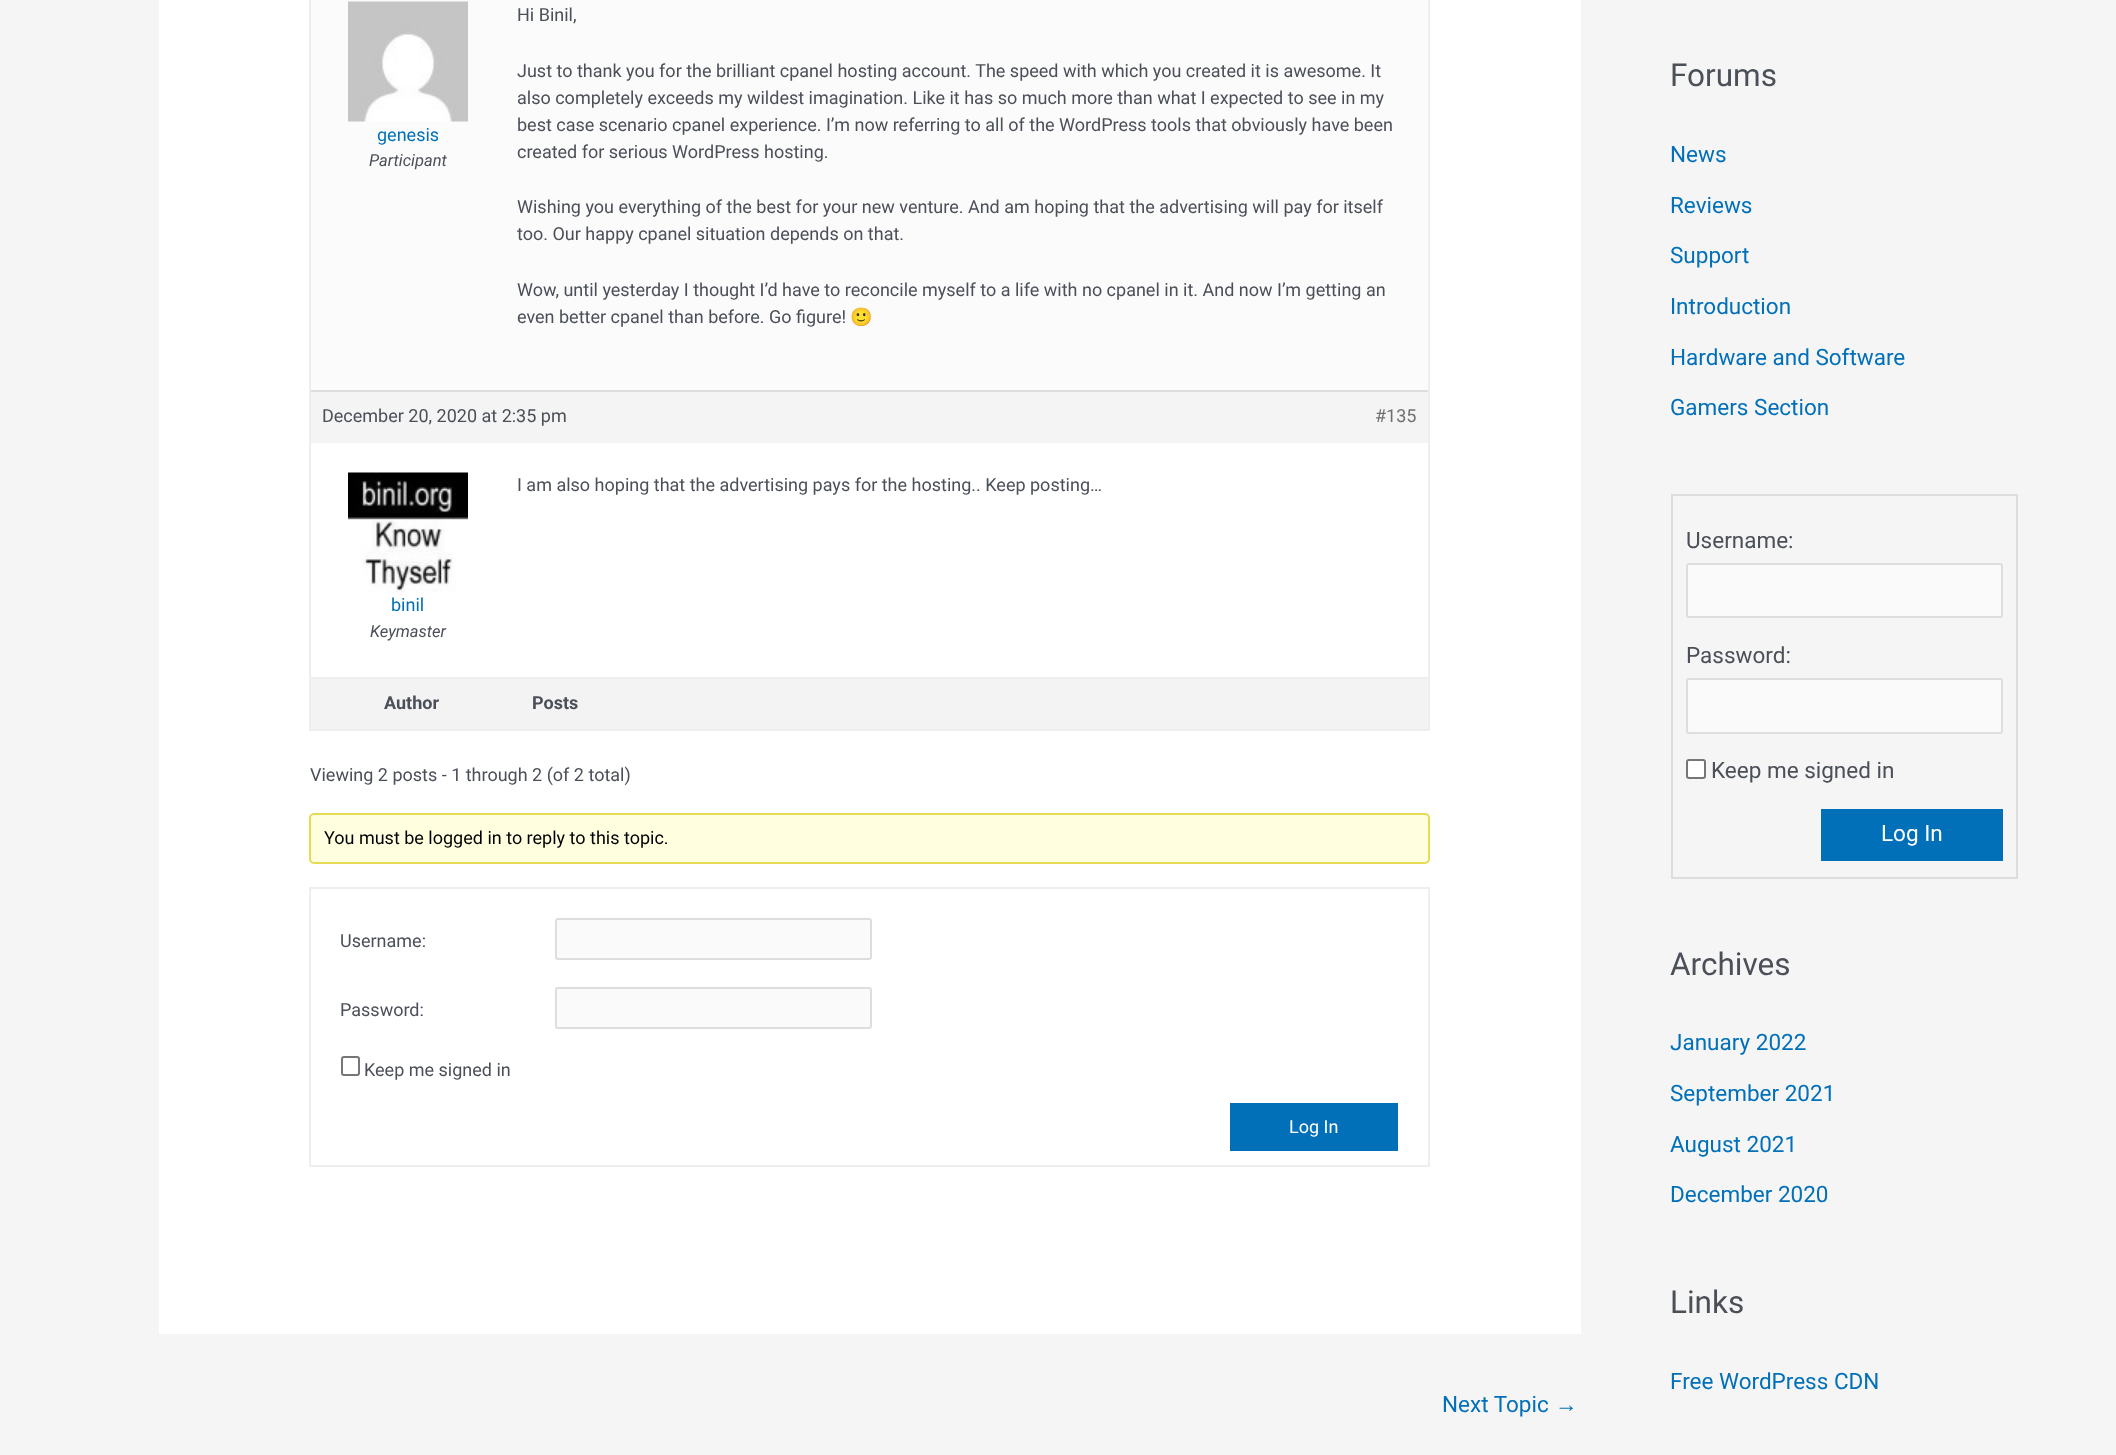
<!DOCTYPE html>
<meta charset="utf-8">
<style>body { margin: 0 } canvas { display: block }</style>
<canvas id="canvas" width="2116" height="1455"></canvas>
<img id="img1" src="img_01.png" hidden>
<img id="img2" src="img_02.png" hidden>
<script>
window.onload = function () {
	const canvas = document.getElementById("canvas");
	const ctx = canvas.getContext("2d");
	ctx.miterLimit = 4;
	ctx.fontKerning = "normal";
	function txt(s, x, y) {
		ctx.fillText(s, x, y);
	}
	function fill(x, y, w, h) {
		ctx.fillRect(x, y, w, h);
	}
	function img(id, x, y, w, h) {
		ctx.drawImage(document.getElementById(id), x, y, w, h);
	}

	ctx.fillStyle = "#F5F5F5";
	fill(0, 0, 2116, 1455);
	ctx.fillStyle = "#FFFFFF";
	fill(159, 0, 1422, 1334);
	ctx.strokeStyle = "#EEEEEE";
	ctx.lineWidth = 2;
	ctx.strokeRect(310, -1, 1119, 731);
	ctx.fillStyle = "#FBFBFB";
	fill(311, 0, 1117, 390);
	img("img1", 348, 1, 120, 121);
	ctx.fillStyle = "#F4F4F4";
	fill(311, 392, 1117, 51);
	ctx.fillStyle = "#DDDDDD";
	fill(311, 390, 1117, 2);
	img("img2", 348, 472, 120, 121);
	ctx.fillStyle = "#F3F3F3";
	fill(311, 679, 1117, 50);
	ctx.fillStyle = "#EEEEEE";
	fill(311, 677, 1117, 2);
	ctx.fillStyle = "#FFFFE0";
	ctx.beginPath();
	ctx.roundRect(310, 814, 1119, 49, 4);
	ctx.fill();
	ctx.strokeStyle = "#E6DB55";
	ctx.stroke();
	ctx.strokeStyle = "#EEEEEE";
	ctx.strokeRect(310, 888, 1119, 278);
	ctx.fillStyle = "#FAFAFA";
	ctx.beginPath();
	ctx.roundRect(556, 919, 315, 40, 2);
	ctx.fill();
	ctx.strokeStyle = "#DDDDDD";
	ctx.stroke();
	ctx.beginPath();
	ctx.roundRect(556, 988, 315, 40, 2);
	ctx.fill();
	ctx.stroke();
	ctx.beginPath();
	ctx.roundRect(342, 1057, 17, 18, 2);
	ctx.strokeStyle = "#767676";
	ctx.stroke();
	ctx.fillStyle = "#0170B9";
	fill(1230, 1103, 168, 48);
	ctx.strokeStyle = "#DDDDDD";
	ctx.strokeRect(1672, 495, 345, 383);
	ctx.fillStyle = "#FAFAFA";
	ctx.beginPath();
	ctx.roundRect(1687, 564, 315, 53, 2);
	ctx.fill();
	ctx.stroke();
	ctx.beginPath();
	ctx.roundRect(1687, 679, 315, 54, 2);
	ctx.fill();
	ctx.stroke();
	ctx.fillStyle = "#FFFFFF";
	ctx.beginPath();
	ctx.roundRect(1687, 760, 18, 18, 2);
	ctx.fill();
	ctx.strokeStyle = "#767676";
	ctx.stroke();
	ctx.fillStyle = "#0170B9";
	fill(1821, 809, 182, 52);
	ctx.font = "18px Roboto";
	txt("genesis", 377, 141);
	ctx.font = "italic 16.5px Roboto";
	ctx.fillStyle = "#4B4F58";
	txt("Participant", 369, 166);
	ctx.font = "18px Roboto";
	txt("Hi Binil,", 517, 21);
	txt("Just to thank you for the brilliant cpanel hosting account. The speed with which you created it is awesome. It", 517, 77);
	txt("also completely exceeds my wildest imagination. Like it has so much more than what I expected to see in my", 517, 104);
	txt("best case scenario cpanel experience. I’m now referring to all of the WordPress tools that obviously have been", 517, 131);
	txt("created for serious WordPress hosting.", 517, 158);
	txt("Wishing you everything of the best for your new venture. And am hoping that the advertising will pay for itself", 517, 213);
	txt("too. Our happy cpanel situation depends on that.", 517, 240);
	txt("Wow, until yesterday I thought I’d have to reconcile myself to a life with no cpanel in it. And now I’m getting an", 517, 296);
	txt("even better cpanel than before. Go figure!", 517, 323);
	ctx.font = "18px Noto Color Emoji";
	txt("🙂", 850, 323);
	ctx.font = "18px Roboto";
	txt("December 20, 2020 at 2:35 pm", 322, 422);
	ctx.fillStyle = "#707070";
	txt("#135", 1375, 422);
	ctx.fillStyle = "#4B4F58";
	txt("I am also hoping that the advertising pays for the hosting.. Keep posting…", 517, 491);
	ctx.fillStyle = "#0170B9";
	txt("binil", 391, 611);
	ctx.font = "italic 16.5px Roboto";
	ctx.fillStyle = "#4B4F58";
	txt("Keymaster", 370, 637);
	ctx.font = "bold 18px Roboto";
	txt("Author", 384, 709);
	txt("Posts", 532, 709);
	ctx.font = "18px Roboto";
	txt("Viewing 2 posts - 1 through 2 (of 2 total)", 310, 781);
	ctx.fillStyle = "#000000";
	txt("You must be logged in to reply to this topic.", 324, 844);
	ctx.fillStyle = "#4B4F58";
	txt("Username:", 340, 947);
	txt("Password:", 340, 1016);
	txt("Keep me signed in", 364, 1076);
	ctx.fillStyle = "#FFFFFF";
	txt("Log In", 1289, 1133);
	ctx.font = "22.5px Roboto";
	ctx.fillStyle = "#0170B9";
	txt("Next Topic", 1442, 1412);
	ctx.font = "22.5px Liberation Sans";
	txt("→", 1555, 1412);
	ctx.font = "31.5px Roboto";
	ctx.fillStyle = "#4B4F58";
	txt("Forums", 1670, 86);
	ctx.font = "22.5px Roboto";
	ctx.fillStyle = "#0170B9";
	txt("News", 1670, 162);
	txt("Reviews", 1670, 213);
	txt("Support", 1670, 263);
	txt("Introduction", 1670, 314);
	txt("Hardware and Software", 1670, 365);
	txt("Gamers Section", 1670, 415);
	ctx.fillStyle = "#4B4F58";
	txt("Username:", 1686, 548);
	txt("Password:", 1686, 663);
	txt("Keep me signed in", 1711, 778);
	ctx.fillStyle = "#FFFFFF";
	txt("Log In", 1881, 841);
	ctx.font = "31.5px Roboto";
	ctx.fillStyle = "#4B4F58";
	txt("Archives", 1670, 975);
	ctx.font = "22.5px Roboto";
	ctx.fillStyle = "#0170B9";
	txt("January 2022", 1670, 1050);
	txt("September 2021", 1670, 1101);
	txt("August 2021", 1670, 1152);
	txt("December 2020", 1670, 1202);
	ctx.font = "31.5px Roboto";
	ctx.fillStyle = "#4B4F58";
	txt("Links", 1670, 1313);
	ctx.font = "22.5px Roboto";
	ctx.fillStyle = "#0170B9";
	txt("Free WordPress CDN", 1670, 1389);
};
</script>
